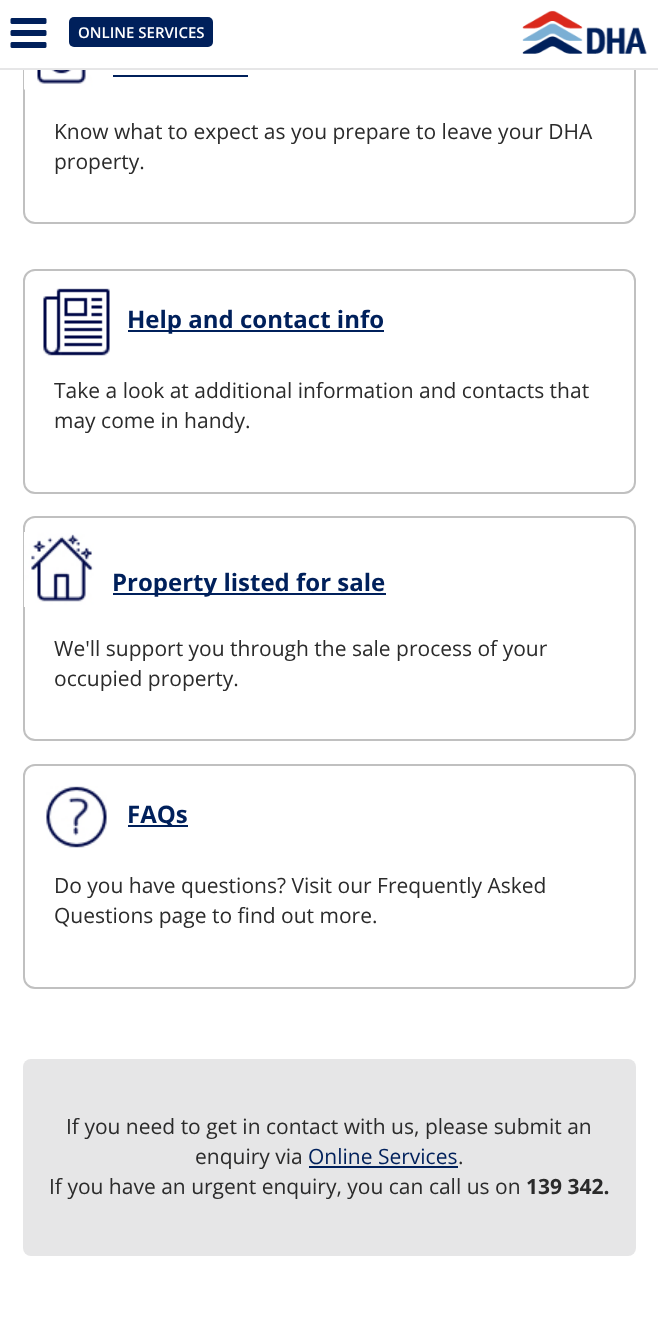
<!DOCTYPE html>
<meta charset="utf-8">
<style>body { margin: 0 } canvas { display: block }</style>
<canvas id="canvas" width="658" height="1331"></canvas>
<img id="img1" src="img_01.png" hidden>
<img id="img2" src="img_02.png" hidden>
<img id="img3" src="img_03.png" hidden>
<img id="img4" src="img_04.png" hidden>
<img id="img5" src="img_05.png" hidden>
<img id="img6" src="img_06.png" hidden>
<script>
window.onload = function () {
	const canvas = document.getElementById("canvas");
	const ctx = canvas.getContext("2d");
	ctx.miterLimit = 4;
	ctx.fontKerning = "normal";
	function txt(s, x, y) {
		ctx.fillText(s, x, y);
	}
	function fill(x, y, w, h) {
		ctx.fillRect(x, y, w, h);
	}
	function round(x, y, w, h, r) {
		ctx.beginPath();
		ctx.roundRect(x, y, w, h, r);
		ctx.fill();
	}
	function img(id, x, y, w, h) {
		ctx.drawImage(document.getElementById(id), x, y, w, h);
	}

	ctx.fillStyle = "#FFFFFF";
	fill(0, 0, 658, 1331);
	ctx.beginPath();
	ctx.roundRect(24, 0, 611, 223, 11);
	ctx.strokeStyle = "#C0C0C0";
	ctx.lineWidth = 2;
	ctx.stroke();
	fill(23, 0, 613, 68);
	ctx.fillStyle = "#E6E6E7";
	fill(0, 68, 658, 2);
	img("img1", 10, 18, 37, 30);
	ctx.fillStyle = "#00205B";
	round(69, 17, 144, 30, 5);
	img("img2", 522, 10, 125, 44);
	img("img3", 24, 70, 69, 20);
	fill(113, 75, 135, 2);
	ctx.beginPath();
	ctx.roundRect(24, 270, 611, 223, 11);
	ctx.stroke();
	img("img4", 43, 288, 67, 68);
	fill(128, 330, 256, 2);
	ctx.beginPath();
	ctx.roundRect(24, 517, 611, 223, 11);
	ctx.stroke();
	img("img5", 24, 532, 70, 75);
	fill(113, 593, 273, 2);
	ctx.beginPath();
	ctx.roundRect(24, 765, 611, 223, 11);
	ctx.stroke();
	img("img6", 46, 786, 61, 62);
	fill(128, 825, 60, 2);
	ctx.fillStyle = "#E6E6E7";
	round(23, 1059, 613, 197, 8);
	ctx.fillStyle = "#00205B";
	fill(309, 1166, 149, 2);
	ctx.font = "600 15px Open Sans";
	ctx.fillStyle = "#FFFFFF";
	txt("ONLINE SERVICES", 78, 38);
	ctx.font = "21px Open Sans";
	ctx.fillStyle = "#2B2B2B";
	txt("Know what to expect as you prepare to leave your DHA", 54, 139);
	txt("property.", 54, 169);
	ctx.font = "bold 24px Open Sans";
	ctx.fillStyle = "#00205B";
	txt("Help and contact info", 127, 328);
	ctx.font = "21px Open Sans";
	ctx.fillStyle = "#2B2B2B";
	txt("Take a look at additional information and contacts that", 54, 398);
	txt("may come in handy.", 54, 428);
	ctx.font = "bold 24px Open Sans";
	ctx.fillStyle = "#00205B";
	txt("Property listed for sale", 112, 591);
	ctx.font = "21px Open Sans";
	ctx.fillStyle = "#2B2B2B";
	txt("We'll support you through the sale process of your", 54, 656);
	txt("occupied property.", 54, 686);
	ctx.font = "bold 24px Open Sans";
	ctx.fillStyle = "#00205B";
	txt("FAQs", 127, 823);
	ctx.font = "21px Open Sans";
	ctx.fillStyle = "#2B2B2B";
	txt("Do you have questions? Visit our Frequently Asked", 54, 893);
	txt("Questions page to find out more.", 54, 923);
	txt("If you need to get in contact with us, please submit an", 66, 1134);
	txt("enquiry via", 195, 1164);
	ctx.fillStyle = "#00205B";
	txt("Online Services", 308, 1164);
	ctx.fillStyle = "#2B2B2B";
	txt(".", 458, 1164);
	txt("If you have an urgent enquiry, you can call us on", 49, 1194);
	ctx.font = "bold 21px Open Sans";
	txt("139 342.", 526, 1194);
};
</script>
